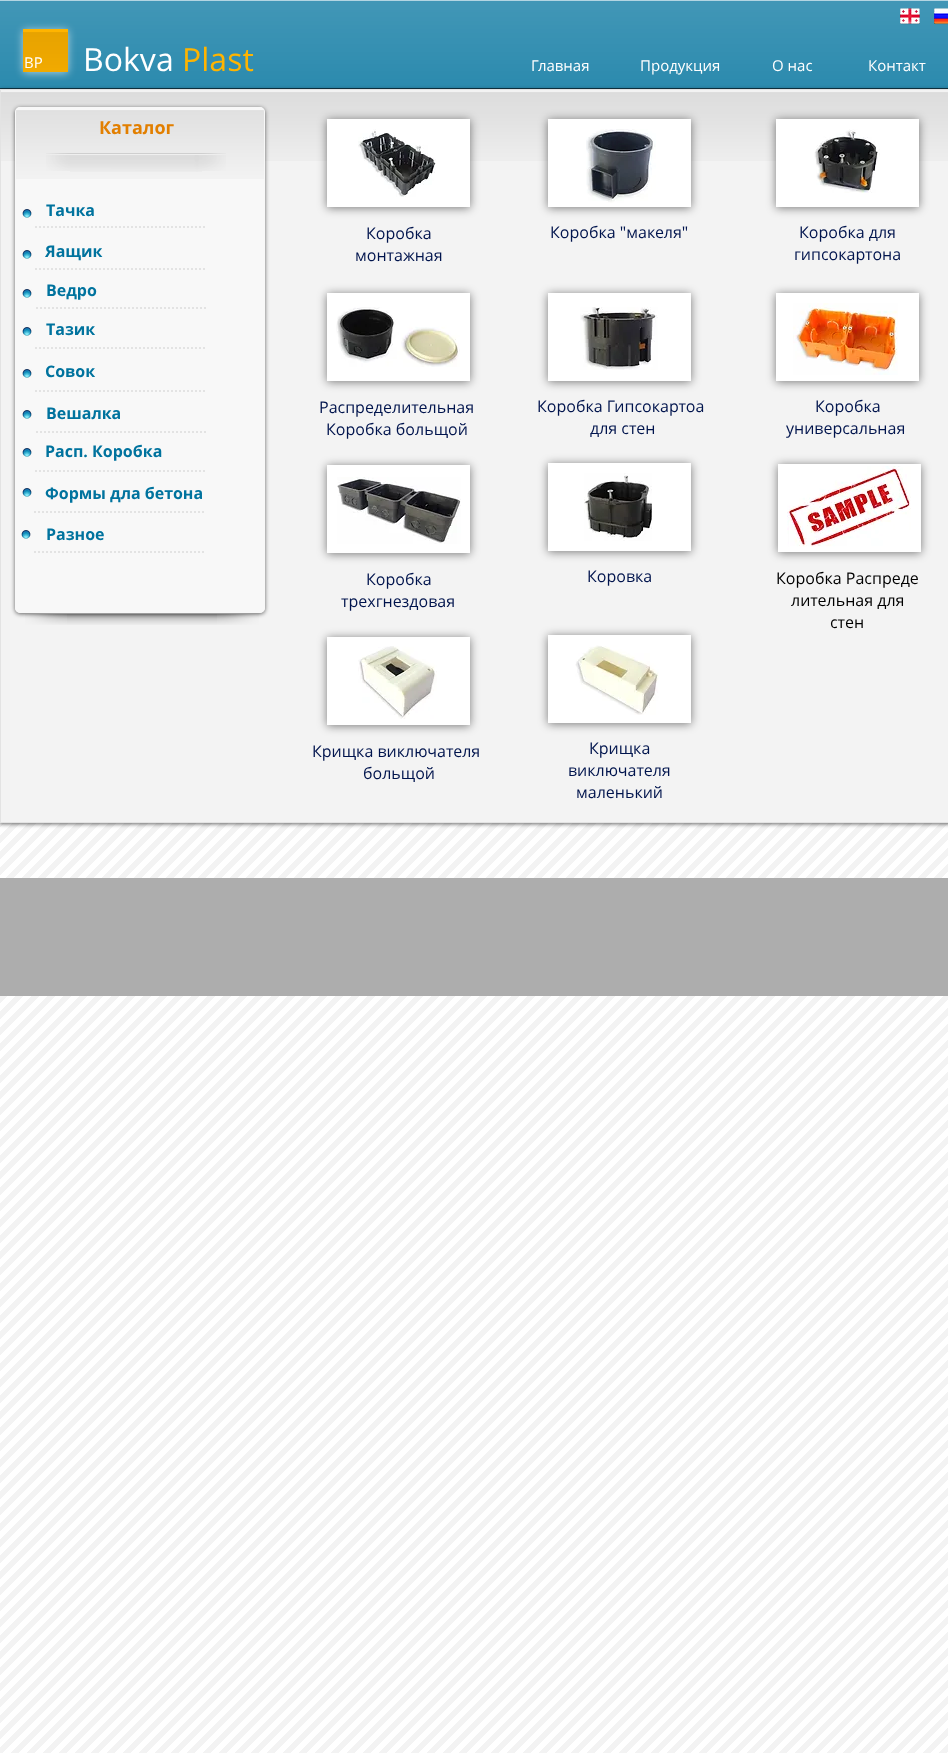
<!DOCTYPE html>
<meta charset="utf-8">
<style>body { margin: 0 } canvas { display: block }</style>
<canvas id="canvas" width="948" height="1753"></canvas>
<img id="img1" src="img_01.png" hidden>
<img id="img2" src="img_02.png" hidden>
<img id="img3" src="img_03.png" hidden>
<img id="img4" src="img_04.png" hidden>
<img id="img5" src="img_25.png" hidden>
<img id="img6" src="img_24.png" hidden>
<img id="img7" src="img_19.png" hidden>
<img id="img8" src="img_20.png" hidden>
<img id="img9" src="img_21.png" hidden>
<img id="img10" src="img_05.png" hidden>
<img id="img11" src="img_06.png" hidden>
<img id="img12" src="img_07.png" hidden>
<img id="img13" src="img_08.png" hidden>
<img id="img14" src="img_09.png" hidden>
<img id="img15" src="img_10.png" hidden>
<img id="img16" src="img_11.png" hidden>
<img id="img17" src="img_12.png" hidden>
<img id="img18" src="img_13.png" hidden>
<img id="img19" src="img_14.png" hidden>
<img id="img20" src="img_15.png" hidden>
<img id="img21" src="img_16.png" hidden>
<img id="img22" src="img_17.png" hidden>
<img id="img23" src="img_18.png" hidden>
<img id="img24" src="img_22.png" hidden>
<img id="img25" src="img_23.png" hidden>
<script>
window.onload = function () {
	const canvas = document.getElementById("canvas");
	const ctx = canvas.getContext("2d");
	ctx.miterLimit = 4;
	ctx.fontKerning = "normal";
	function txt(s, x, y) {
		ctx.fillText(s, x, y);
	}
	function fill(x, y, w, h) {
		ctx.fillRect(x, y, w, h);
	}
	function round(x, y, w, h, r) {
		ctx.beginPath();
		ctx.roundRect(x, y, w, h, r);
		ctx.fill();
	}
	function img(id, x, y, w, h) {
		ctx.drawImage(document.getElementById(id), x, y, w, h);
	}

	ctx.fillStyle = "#FFFFFF";
	fill(0, 0, 948, 1753);
	ctx.fillStyle = "#00739E";
	fill(0, 1, 948, 87);
	img("img1", 0, 1, 948, 87);
	ctx.fillStyle = "#113746";
	fill(0, 88, 948, 1);
	ctx.fillStyle = "#B3D5E2";
	fill(0, 0, 948, 1);
	img("img2", 900, 8, 20, 17);
	img("img3", 934, 8, 14, 17);
	ctx.fillStyle = "rgba(255, 255, 255, 0.6)";
	ctx.filter = "blur(4.5px)";
	ctx.beginPath();
	ctx.rect(23, 30, 45, 43);
	ctx.fill();
	ctx.filter = "none";
	ctx.fillStyle = "#FFB400";
	fill(23, 29, 45, 43);
	img("img4", 23, 32, 45, 40);
	img("img5", 0, 823, 948, 930);
	ctx.fillStyle = "rgba(0, 0, 0, 0.6)";
	ctx.filter = "blur(2px)";
	ctx.beginPath();
	ctx.rect(0, 90, 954, 734);
	ctx.fill();
	ctx.filter = "none";
	ctx.fillStyle = "#F3F3F3";
	fill(1, 90, 947, 732);
	img("img6", 1, 92, 947, 69);
	ctx.strokeStyle = "#E3E3E3";
	ctx.strokeRect(0.5, 89.5, 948, 733);
	img("img7", 67, 614, 150, 11);
	img("img8", 25, 614, 42, 11);
	img("img9", 217, 614, 42, 11);
	ctx.fillStyle = "rgba(0, 0, 0, 0.6)";
	ctx.filter = "blur(2px)";
	ctx.beginPath();
	ctx.roundRect(15, 108, 250, 506, 5);
	ctx.fill();
	ctx.filter = "none";
	ctx.fillStyle = "#F8F8F8";
	round(15, 107, 250, 506, 5);
	img("img10", 15, 110, 250, 69);
	ctx.beginPath();
	ctx.roundRect(15.5, 107.5, 249, 505, 4.5);
	ctx.strokeStyle = "#F8F8F8";
	ctx.stroke();
	img("img11", 46, 153, 24, 18);
	img("img12", 70, 153, 132, 19);
	img("img13", 202, 153, 24, 18);
	img("img14", 22, 209, 10, 9);
	ctx.beginPath();
	ctx.moveTo(205, 227);
	ctx.lineTo(35, 227);
	ctx.strokeStyle = "#E3E3E3";
	ctx.lineWidth = 2;
	ctx.setLineDash([2, 2]);
	ctx.stroke();
	img("img14", 22, 250, 10, 9);
	ctx.beginPath();
	ctx.moveTo(205, 269);
	ctx.lineTo(35, 269);
	ctx.stroke();
	img("img14", 22, 289, 10, 9);
	ctx.beginPath();
	ctx.moveTo(206, 308);
	ctx.lineTo(36, 308);
	ctx.stroke();
	img("img14", 22, 327, 10, 9);
	ctx.beginPath();
	ctx.moveTo(205, 348);
	ctx.lineTo(35, 348);
	ctx.stroke();
	img("img14", 22, 369, 10, 9);
	ctx.beginPath();
	ctx.moveTo(205, 391);
	ctx.lineTo(35, 391);
	ctx.stroke();
	img("img14", 22, 410, 10, 9);
	ctx.beginPath();
	ctx.moveTo(206, 432);
	ctx.lineTo(36, 432);
	ctx.stroke();
	img("img14", 22, 448, 10, 9);
	ctx.beginPath();
	ctx.moveTo(205, 471);
	ctx.lineTo(35, 471);
	ctx.stroke();
	img("img14", 22, 488, 10, 9);
	ctx.beginPath();
	ctx.moveTo(204, 512);
	ctx.lineTo(34, 512);
	ctx.stroke();
	img("img14", 21, 530, 10, 9);
	ctx.beginPath();
	ctx.moveTo(204, 552);
	ctx.lineTo(34, 552);
	ctx.stroke();
	ctx.fillStyle = "rgba(0, 0, 0, 0.5)";
	ctx.filter = "blur(5px)";
	ctx.beginPath();
	ctx.rect(327, 120, 143, 88);
	ctx.fill();
	ctx.filter = "none";
	ctx.fillStyle = "#FFFFFF";
	fill(327, 119, 143, 88);
	img("img15", 358, 129, 78, 68);
	ctx.fillStyle = "rgba(0, 0, 0, 0.5)";
	ctx.filter = "blur(5px)";
	ctx.beginPath();
	ctx.rect(548, 120, 143, 88);
	ctx.fill();
	ctx.filter = "none";
	ctx.fillStyle = "#FFFFFF";
	fill(548, 119, 143, 88);
	img("img16", 586, 129, 70, 74);
	ctx.fillStyle = "rgba(0, 0, 0, 0.5)";
	ctx.filter = "blur(5px)";
	ctx.beginPath();
	ctx.rect(776, 120, 143, 88);
	ctx.fill();
	ctx.filter = "none";
	ctx.fillStyle = "#FFFFFF";
	fill(776, 119, 143, 88);
	img("img17", 814, 129, 66, 64);
	ctx.fillStyle = "rgba(0, 0, 0, 0.5)";
	ctx.filter = "blur(5px)";
	ctx.beginPath();
	ctx.rect(327, 294, 143, 88);
	ctx.fill();
	ctx.filter = "none";
	ctx.fillStyle = "#FFFFFF";
	fill(327, 293, 143, 88);
	img("img18", 336, 307, 124, 60);
	ctx.fillStyle = "rgba(0, 0, 0, 0.5)";
	ctx.filter = "blur(5px)";
	ctx.beginPath();
	ctx.rect(548, 294, 143, 88);
	ctx.fill();
	ctx.filter = "none";
	ctx.fillStyle = "#FFFFFF";
	fill(548, 293, 143, 88);
	img("img19", 580, 307, 78, 63);
	ctx.fillStyle = "rgba(0, 0, 0, 0.5)";
	ctx.filter = "blur(5px)";
	ctx.beginPath();
	ctx.rect(776, 294, 143, 88);
	ctx.fill();
	ctx.filter = "none";
	ctx.fillStyle = "#FFFFFF";
	fill(776, 293, 143, 88);
	img("img20", 793, 303, 105, 72);
	ctx.fillStyle = "rgba(0, 0, 0, 0.5)";
	ctx.filter = "blur(5px)";
	ctx.beginPath();
	ctx.rect(327, 466, 143, 88);
	ctx.fill();
	ctx.filter = "none";
	ctx.fillStyle = "#FFFFFF";
	fill(327, 465, 143, 88);
	img("img21", 337, 477, 124, 67);
	ctx.fillStyle = "rgba(0, 0, 0, 0.5)";
	ctx.filter = "blur(5px)";
	ctx.beginPath();
	ctx.rect(548, 464, 143, 88);
	ctx.fill();
	ctx.filter = "none";
	ctx.fillStyle = "#FFFFFF";
	fill(548, 463, 143, 88);
	img("img22", 584, 473, 68, 68);
	ctx.fillStyle = "rgba(0, 0, 0, 0.5)";
	ctx.filter = "blur(5px)";
	ctx.beginPath();
	ctx.rect(778, 465, 143, 88);
	ctx.fill();
	ctx.filter = "none";
	ctx.fillStyle = "#FFFFFF";
	fill(778, 464, 143, 88);
	img("img23", 787, 466, 124, 81);
	ctx.fillStyle = "rgba(0, 0, 0, 0.5)";
	ctx.filter = "blur(5px)";
	ctx.beginPath();
	ctx.rect(327, 638, 143, 88);
	ctx.fill();
	ctx.filter = "none";
	ctx.fillStyle = "#FFFFFF";
	fill(327, 637, 143, 88);
	img("img24", 358, 646, 79, 73);
	ctx.fillStyle = "rgba(0, 0, 0, 0.5)";
	ctx.filter = "blur(5px)";
	ctx.beginPath();
	ctx.rect(548, 636, 143, 88);
	ctx.fill();
	ctx.filter = "none";
	ctx.fillStyle = "#FFFFFF";
	fill(548, 635, 143, 88);
	img("img25", 575, 645, 84, 70);
	ctx.fillStyle = "#ADADAD";
	fill(0, 878, 948, 118);
	ctx.font = "15px Open Sans";
	ctx.fillStyle = "#FFFFFF";
	txt("BP", 24, 68);
	ctx.font = "32px Open Sans";
	txt("Bokva", 83, 71);
	ctx.fillStyle = "#FFB400";
	txt("Plast", 182, 71);
	ctx.font = "15px Open Sans";
	ctx.fillStyle = "#FFFFFF";
	txt("Главная", 531, 71);
	txt("Продукция", 640, 71);
	txt("О нас", 772, 71);
	txt("Контакт", 868, 71);
	ctx.font = "bold 18px Open Sans";
	ctx.fillStyle = "#E27F00";
	txt("Каталог", 99, 134);
	ctx.font = "bold 16px Open Sans";
	ctx.fillStyle = "#00739E";
	txt("Тачка", 46, 216);
	txt("Яащик", 45, 257);
	txt("Ведро", 46, 296);
	txt("Тазик", 46, 335);
	txt("Совок", 45, 377);
	txt("Вешалка", 46, 419);
	txt("Расп. Коробка", 45, 457);
	txt("Формы дла бетона", 45, 499);
	txt("Разное", 46, 540);
	ctx.font = "16px Open Sans";
	ctx.fillStyle = "#00144D";
	txt("Коробка", 366, 239);
	txt("монтажная", 355, 261);
	txt("Коробка \"макеля\"", 550, 238);
	txt("Коробка для", 799, 238);
	txt("гипсокартона", 794, 260);
	txt("Распределительная", 319, 413);
	txt("Коробка больщой", 326, 435);
	txt("Коробка Гипсокартоа", 537, 412);
	txt("для стен", 590, 434);
	txt("Коробка", 815, 412);
	txt("универсальная", 786, 434);
	txt("Коробка", 366, 585);
	txt("трехгнездовая", 341, 607);
	txt("Коровка", 587, 582);
	ctx.fillStyle = "#000000";
	txt("Коробка Распреде", 776, 584);
	txt("лительная для", 791, 606);
	txt("стен", 830, 628);
	ctx.fillStyle = "#00144D";
	txt("Крищка виключателя", 312, 757);
	txt("больщой", 363, 779);
	txt("Крищка", 589, 754);
	txt("виключателя", 568, 776);
	txt("маленький", 576, 798);
};
</script>
